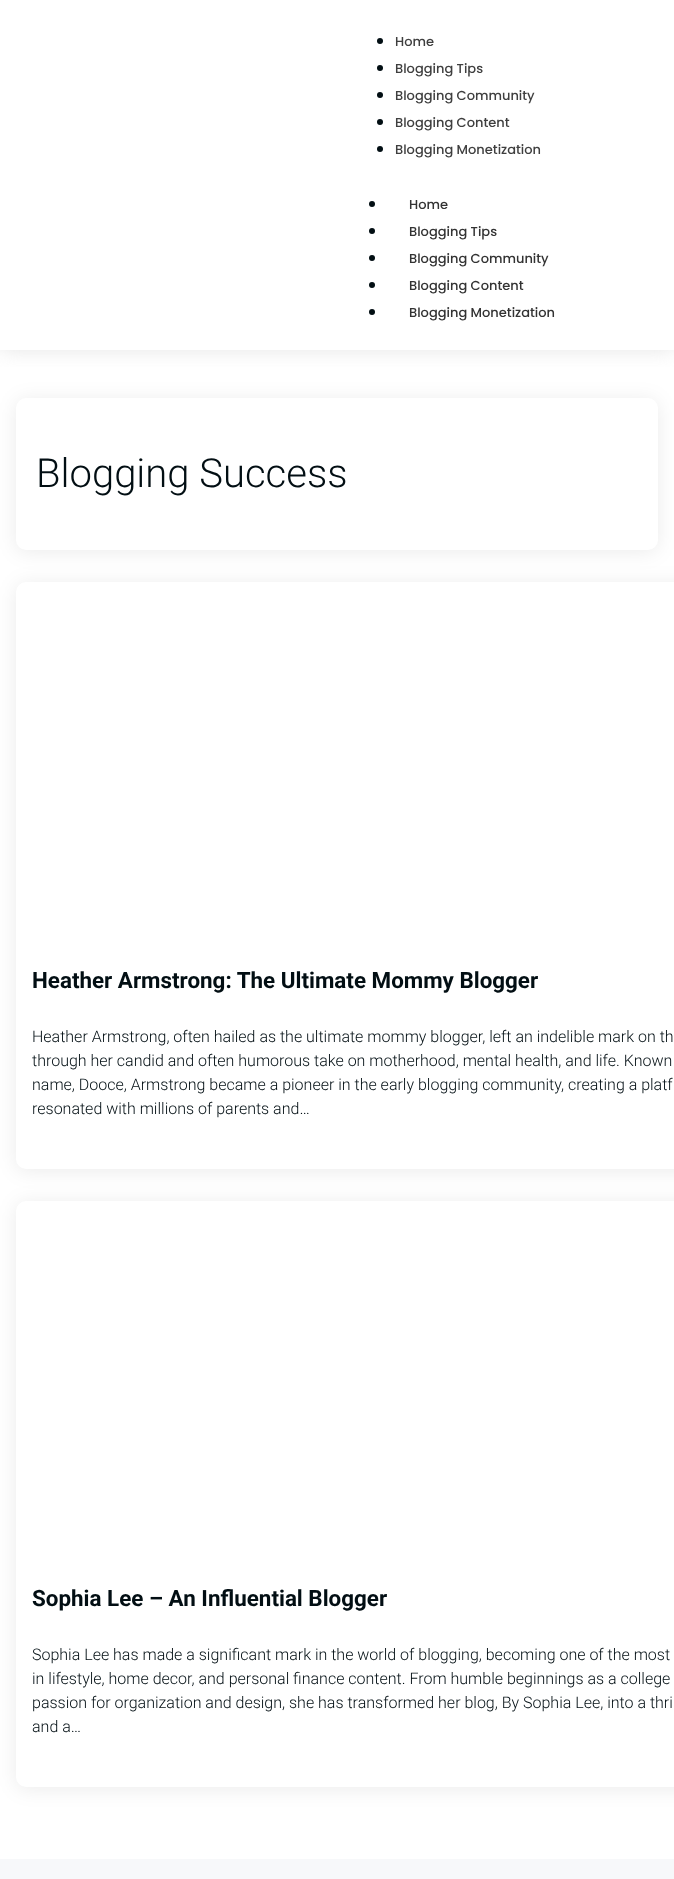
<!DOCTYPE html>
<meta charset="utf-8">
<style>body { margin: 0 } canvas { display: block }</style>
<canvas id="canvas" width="674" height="1879"></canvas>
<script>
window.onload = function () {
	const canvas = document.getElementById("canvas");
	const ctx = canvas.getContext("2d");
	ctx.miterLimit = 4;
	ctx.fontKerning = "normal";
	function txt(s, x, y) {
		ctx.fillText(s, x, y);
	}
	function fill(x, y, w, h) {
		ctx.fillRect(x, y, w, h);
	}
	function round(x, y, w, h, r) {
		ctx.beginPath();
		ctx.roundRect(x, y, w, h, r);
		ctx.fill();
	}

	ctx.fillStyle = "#FFFFFF";
	fill(0, 0, 674, 1879);
	ctx.save();
	ctx.beginPath();
	ctx.rect(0, 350, 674, 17);
	ctx.clip();
	ctx.fillStyle = "rgba(203, 203, 203, 0.5)";
	ctx.filter = "blur(10px)";
	ctx.beginPath();
	ctx.rect(0, 0, 674, 350);
	ctx.fill();
	ctx.filter = "none";
	ctx.restore();
	ctx.fillStyle = "#020E13";
	ctx.beginPath();
	ctx.arc(380, 41, 3, 0, Math.PI * 2);
	ctx.fill();
	ctx.beginPath();
	ctx.arc(380, 68, 3, 0, Math.PI * 2);
	ctx.fill();
	ctx.beginPath();
	ctx.arc(380, 95, 3, 0, Math.PI * 2);
	ctx.fill();
	ctx.beginPath();
	ctx.arc(380, 122, 3, 0, Math.PI * 2);
	ctx.fill();
	ctx.beginPath();
	ctx.arc(380, 149, 3, 0, Math.PI * 2);
	ctx.fill();
	ctx.beginPath();
	ctx.arc(372, 204, 3, 0, Math.PI * 2);
	ctx.fill();
	ctx.beginPath();
	ctx.arc(372, 231, 3, 0, Math.PI * 2);
	ctx.fill();
	ctx.beginPath();
	ctx.arc(372, 258, 3, 0, Math.PI * 2);
	ctx.fill();
	ctx.beginPath();
	ctx.arc(372, 285, 3, 0, Math.PI * 2);
	ctx.fill();
	ctx.beginPath();
	ctx.arc(372, 312, 3, 0, Math.PI * 2);
	ctx.fill();
	ctx.fillStyle = "rgba(0, 0, 0, 0.08)";
	ctx.filter = "blur(10px)";
	ctx.beginPath();
	ctx.roundRect(16, 400, 642, 152, 10);
	ctx.fill();
	ctx.filter = "none";
	ctx.fillStyle = "#FFFFFF";
	round(16, 398, 642, 152, 10);
	ctx.fillStyle = "rgba(0, 0, 0, 0.08)";
	ctx.filter = "blur(10px)";
	ctx.beginPath();
	ctx.roundRect(16, 584, 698, 587, 10);
	ctx.fill();
	ctx.filter = "none";
	ctx.fillStyle = "#FFFFFF";
	round(16, 582, 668, 587, 10);
	ctx.fillStyle = "rgba(0, 0, 0, 0.08)";
	ctx.filter = "blur(10px)";
	ctx.beginPath();
	ctx.roundRect(16, 1203, 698, 586, 10);
	ctx.fill();
	ctx.filter = "none";
	ctx.fillStyle = "#FFFFFF";
	round(16, 1201, 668, 586, 10);
	ctx.fillStyle = "#F7F8FA";
	fill(0, 1859, 674, 20);
	ctx.font = "500 13px Poppins";
	ctx.fillStyle = "#3F3F3F";
	txt("Home", 395, 46);
	txt("Blogging Tips", 395, 73);
	txt("Blogging Community", 395, 100);
	txt("Blogging Content", 395, 127);
	txt("Blogging Monetization", 395, 154);
	ctx.fillStyle = "#333333";
	txt("Home", 409, 209);
	txt("Blogging Tips", 409, 236);
	txt("Blogging Community", 409, 263);
	txt("Blogging Content", 409, 290);
	txt("Blogging Monetization", 409, 317);
	ctx.font = "300 40px Roboto";
	ctx.fillStyle = "#020E13";
	txt("Blogging Success", 36, 487);
	ctx.font = "bold 22.4px Roboto";
	txt("Heather Armstrong: The Ultimate Mommy Blogger", 32, 988);
	ctx.font = "300 16px Roboto";
	txt("Heather Armstrong, often hailed as the ultimate mommy blogger, left an indelible mark on th", 32, 1042);
	txt("through her candid and often humorous take on motherhood, mental health, and life. Known", 32, 1066);
	txt("name, Dooce, Armstrong became a pioneer in the early blogging community, creating a platf", 32, 1090);
	txt("resonated with millions of parents and…", 32, 1114);
	ctx.font = "bold 22.4px Roboto";
	txt("Sophia Lee – An Influential Blogger", 32, 1606);
	ctx.font = "300 16px Roboto";
	txt("Sophia Lee has made a significant mark in the world of blogging, becoming one of the most", 32, 1660);
	txt("in lifestyle, home decor, and personal finance content. From humble beginnings as a college", 32, 1684);
	txt("passion for organization and design, she has transformed her blog, By Sophia Lee, into a thri", 32, 1708);
	txt("and a…", 32, 1732);
};
</script>
